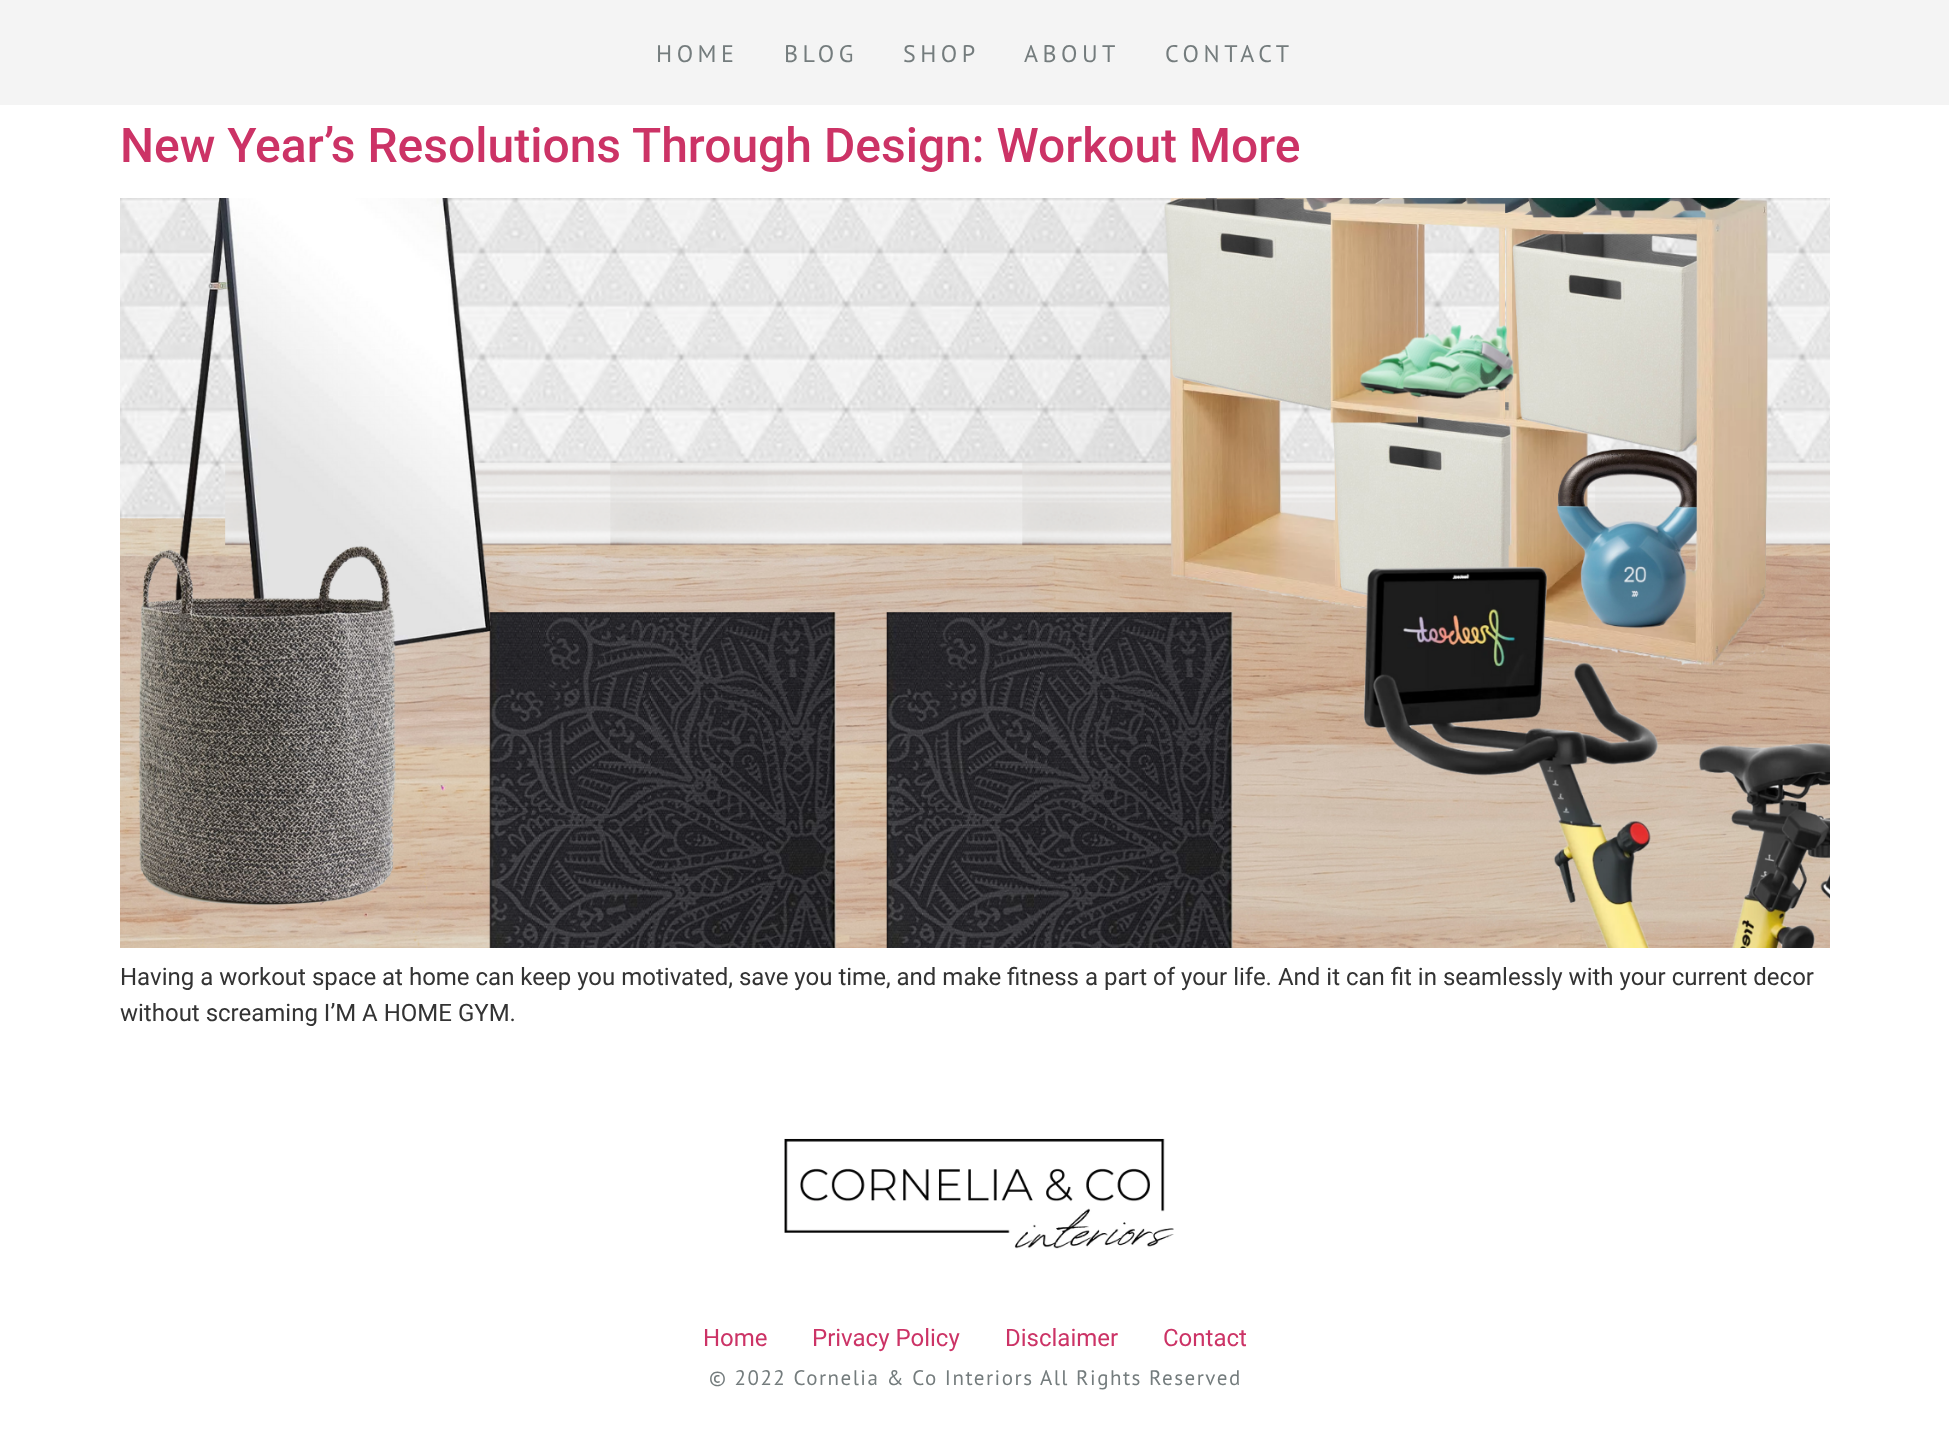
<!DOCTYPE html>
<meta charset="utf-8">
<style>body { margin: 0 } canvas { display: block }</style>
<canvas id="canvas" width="1949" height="1442"></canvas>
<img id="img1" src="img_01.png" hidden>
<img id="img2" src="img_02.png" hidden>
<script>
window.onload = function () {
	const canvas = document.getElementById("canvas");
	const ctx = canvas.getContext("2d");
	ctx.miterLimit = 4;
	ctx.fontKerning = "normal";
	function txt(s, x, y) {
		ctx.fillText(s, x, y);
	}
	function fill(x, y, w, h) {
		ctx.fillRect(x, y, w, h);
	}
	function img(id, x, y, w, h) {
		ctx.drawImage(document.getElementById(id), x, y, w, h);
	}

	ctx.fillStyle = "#FFFFFF";
	fill(0, 0, 1949, 1442);
	ctx.fillStyle = "#F4F4F4";
	fill(0, 0, 1949, 105);
	img("img1", 120, 198, 1710, 750);
	img("img2", 784, 1138, 390, 111);
	ctx.letterSpacing = "4.5px";
	ctx.font = "24px PT Sans";
	ctx.fillStyle = "#747C7D";
	txt("HOME", 656, 62);
	txt("BLOG", 784, 62);
	txt("SHOP", 903, 62);
	txt("ABOUT", 1024, 62);
	txt("CONTACT", 1165, 62);
	ctx.letterSpacing = "0px";
	ctx.font = "500 48px Roboto";
	ctx.fillStyle = "#CC3366";
	txt("New Year’s Resolutions Through Design: Workout More", 120, 162);
	ctx.font = "24px Roboto";
	ctx.fillStyle = "#333333";
	txt("Having a workout space at home can keep you motivated, save you time, and make fitness a part of your life. And it can fit in seamlessly with your current decor", 120, 985);
	txt("without screaming I’M A HOME GYM.", 120, 1021);
	ctx.fillStyle = "#CC3366";
	txt("Home", 703, 1346);
	txt("Privacy Policy", 812, 1346);
	txt("Disclaimer", 1005, 1346);
	txt("Contact", 1163, 1346);
	ctx.letterSpacing = "1.5px";
	ctx.font = "21px PT Sans";
	ctx.fillStyle = "#747C7D";
	txt("© 2022 Cornelia & Co Interiors All Rights Reserved", 709, 1385);
};
</script>
